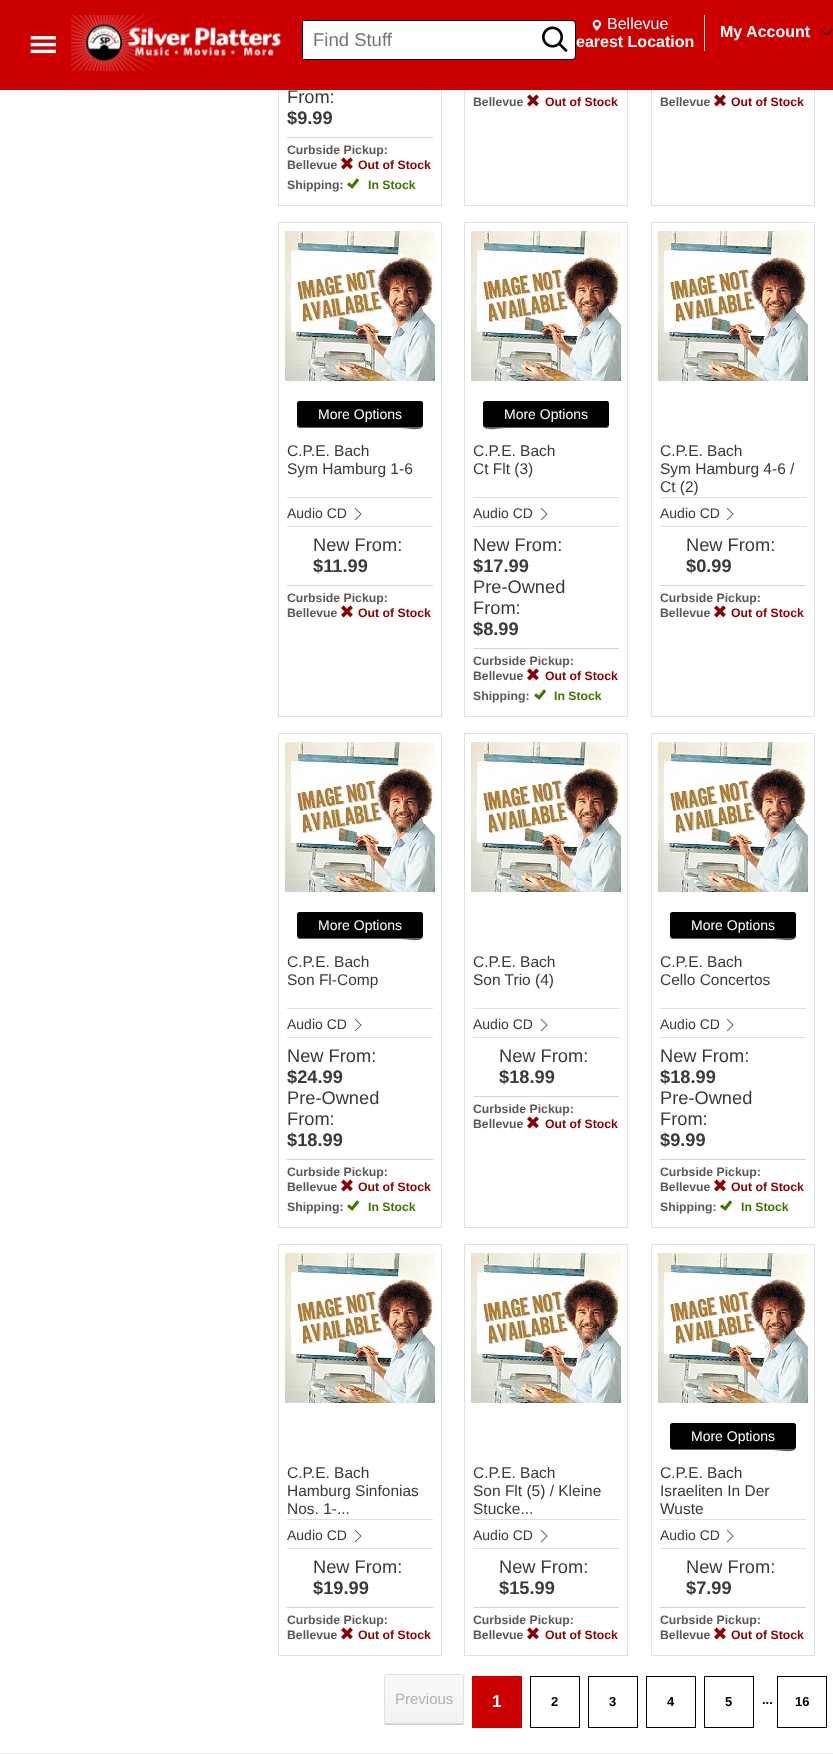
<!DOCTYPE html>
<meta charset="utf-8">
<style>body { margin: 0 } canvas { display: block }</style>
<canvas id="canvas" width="833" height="1754"></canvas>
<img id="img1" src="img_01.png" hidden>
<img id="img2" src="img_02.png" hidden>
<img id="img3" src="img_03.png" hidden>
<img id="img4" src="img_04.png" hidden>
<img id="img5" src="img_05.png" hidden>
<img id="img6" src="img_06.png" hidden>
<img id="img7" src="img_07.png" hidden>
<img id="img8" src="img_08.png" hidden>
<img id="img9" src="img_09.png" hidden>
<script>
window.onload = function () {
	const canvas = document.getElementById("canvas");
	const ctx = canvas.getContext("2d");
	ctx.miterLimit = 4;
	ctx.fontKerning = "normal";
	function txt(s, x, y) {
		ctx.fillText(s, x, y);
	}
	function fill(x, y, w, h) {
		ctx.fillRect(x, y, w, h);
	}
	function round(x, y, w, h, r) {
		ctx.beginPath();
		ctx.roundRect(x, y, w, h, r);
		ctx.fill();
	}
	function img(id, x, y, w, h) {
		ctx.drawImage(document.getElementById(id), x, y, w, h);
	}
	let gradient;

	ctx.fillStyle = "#FFFFFF";
	fill(0, 0, 833, 1754);
	ctx.strokeStyle = "#E0E0E0";
	ctx.strokeRect(278.5, -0.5, 163, 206);
	ctx.strokeRect(464.5, -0.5, 163, 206);
	ctx.strokeRect(651.5, -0.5, 163, 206);
	ctx.fillStyle = "#CC0001";
	fill(0, 0, 833, 90);
	img("img1", 30, 36, 27, 18);
	img("img2", 71, 15, 210, 56);
	ctx.fillStyle = "#FFFFFF";
	ctx.beginPath();
	ctx.roundRect(302.5, 20.5, 273, 39, 3.5);
	ctx.fill();
	ctx.strokeStyle = "#000000";
	ctx.stroke();
	fill(303, 21, 3, 38);
	img("img3", 542, 26, 26, 26);
	ctx.fillStyle = "#E0E0E0";
	fill(704, 15, 1, 36);
	img("img4", 592, 19, 10, 12);
	img("img5", 820, 29, 13, 7);
	ctx.fillStyle = "#D3D3D3";
	fill(287, 137, 146, 1);
	img("img6", 341, 157, 12, 13);
	img("img7", 347, 178, 13, 11);
	img("img6", 527, 94, 12, 13);
	img("img6", 714, 94, 12, 13);
	ctx.strokeStyle = "#E0E0E0";
	ctx.strokeRect(278.5, 222.5, 163, 494);
	img("img8", 285, 231, 150, 150);
	ctx.fillStyle = "#606060";
	ctx.beginPath();
	ctx.moveTo(297, 425);
	ctx.bezierCurveTo(297, 426, 297, 427, 299, 428);
	ctx.lineTo(400, 428);
	ctx.bezierCurveTo(407, 428, 423, 432, 423, 425);
	ctx.bezierCurveTo(423, 426, 422, 427, 421, 427);
	ctx.lineTo(299, 427);
	ctx.bezierCurveTo(298, 427, 297, 426, 297, 425);
	ctx.closePath();
	ctx.fill();
	ctx.fillStyle = "#000000";
	round(297, 401, 126, 26, 2.5);
	ctx.fillStyle = "#E0E0E0";
	fill(287, 497, 146, 1);
	fill(287, 526, 146, 1);
	img("img9", 354, 507, 8, 14);
	ctx.fillStyle = "#D3D3D3";
	fill(287, 585, 146, 1);
	img("img6", 341, 605, 12, 13);
	ctx.strokeRect(464.5, 222.5, 163, 494);
	img("img8", 471, 231, 150, 150);
	ctx.fillStyle = "#606060";
	ctx.beginPath();
	ctx.moveTo(483, 425);
	ctx.bezierCurveTo(483, 432, 499, 428, 506, 428);
	ctx.lineTo(607, 428);
	ctx.bezierCurveTo(609, 427, 609, 426, 609, 425);
	ctx.bezierCurveTo(609, 426, 608, 427, 607, 427);
	ctx.lineTo(485, 427);
	ctx.bezierCurveTo(484, 427, 483, 426, 483, 425);
	ctx.closePath();
	ctx.fill();
	ctx.fillStyle = "#000000";
	round(483, 401, 126, 26, 2.5);
	ctx.fillStyle = "#E0E0E0";
	fill(473, 497, 146, 1);
	fill(473, 526, 146, 1);
	img("img9", 540, 507, 8, 14);
	ctx.fillStyle = "#D3D3D3";
	fill(473, 648, 146, 1);
	img("img6", 527, 668, 12, 13);
	img("img7", 534, 689, 13, 11);
	ctx.strokeRect(651.5, 222.5, 163, 494);
	img("img8", 658, 231, 150, 150);
	ctx.fillStyle = "#E0E0E0";
	fill(660, 497, 146, 1);
	fill(660, 526, 146, 1);
	img("img9", 726, 507, 8, 14);
	ctx.fillStyle = "#D3D3D3";
	fill(660, 585, 146, 1);
	img("img6", 714, 605, 12, 13);
	ctx.strokeRect(278.5, 733.5, 163, 494);
	img("img8", 285, 742, 150, 150);
	ctx.fillStyle = "#606060";
	ctx.beginPath();
	ctx.moveTo(297, 936);
	ctx.bezierCurveTo(297, 937, 297, 938, 299, 939);
	ctx.lineTo(400, 939);
	ctx.bezierCurveTo(407, 939, 423, 943, 423, 936);
	ctx.bezierCurveTo(423, 937, 422, 938, 421, 938);
	ctx.lineTo(299, 938);
	ctx.bezierCurveTo(298, 938, 297, 937, 297, 936);
	ctx.closePath();
	ctx.fill();
	ctx.fillStyle = "#000000";
	round(297, 912, 126, 26, 2.5);
	ctx.fillStyle = "#E0E0E0";
	fill(287, 1008, 146, 1);
	fill(287, 1037, 146, 1);
	img("img9", 354, 1018, 8, 14);
	ctx.fillStyle = "#D3D3D3";
	fill(287, 1159, 146, 1);
	img("img6", 341, 1179, 12, 13);
	img("img7", 347, 1200, 13, 11);
	ctx.strokeRect(464.5, 733.5, 163, 494);
	img("img8", 471, 742, 150, 150);
	ctx.fillStyle = "#E0E0E0";
	fill(473, 1008, 146, 1);
	fill(473, 1037, 146, 1);
	img("img9", 540, 1018, 8, 14);
	ctx.fillStyle = "#D3D3D3";
	fill(473, 1096, 146, 1);
	img("img6", 527, 1116, 12, 13);
	ctx.strokeRect(651.5, 733.5, 163, 494);
	img("img8", 658, 742, 150, 150);
	ctx.fillStyle = "#606060";
	ctx.beginPath();
	ctx.moveTo(670, 936);
	ctx.bezierCurveTo(670, 937, 670, 938, 672, 939);
	ctx.lineTo(773, 939);
	ctx.bezierCurveTo(780, 939, 796, 943, 796, 936);
	ctx.bezierCurveTo(796, 937, 795, 938, 794, 938);
	ctx.lineTo(672, 938);
	ctx.bezierCurveTo(671, 938, 670, 937, 670, 936);
	ctx.closePath();
	ctx.fill();
	ctx.fillStyle = "#000000";
	round(670, 912, 126, 26, 2.5);
	ctx.fillStyle = "#E0E0E0";
	fill(660, 1008, 146, 1);
	fill(660, 1037, 146, 1);
	img("img9", 726, 1018, 8, 14);
	ctx.fillStyle = "#D3D3D3";
	fill(660, 1159, 146, 1);
	img("img6", 714, 1179, 12, 13);
	img("img7", 720, 1200, 13, 11);
	ctx.strokeRect(278.5, 1244.5, 163, 411);
	img("img8", 285, 1253, 150, 150);
	ctx.fillStyle = "#E0E0E0";
	fill(287, 1519, 146, 1);
	fill(287, 1548, 146, 1);
	img("img9", 354, 1529, 8, 14);
	ctx.fillStyle = "#D3D3D3";
	fill(287, 1607, 146, 1);
	img("img6", 341, 1627, 12, 13);
	ctx.strokeRect(464.5, 1244.5, 163, 411);
	img("img8", 471, 1253, 150, 150);
	ctx.fillStyle = "#E0E0E0";
	fill(473, 1519, 146, 1);
	fill(473, 1548, 146, 1);
	img("img9", 540, 1529, 8, 14);
	ctx.fillStyle = "#D3D3D3";
	fill(473, 1607, 146, 1);
	img("img6", 527, 1627, 12, 13);
	ctx.strokeRect(651.5, 1244.5, 163, 411);
	img("img8", 658, 1253, 150, 150);
	ctx.fillStyle = "#606060";
	ctx.beginPath();
	ctx.moveTo(670, 1447);
	ctx.bezierCurveTo(670, 1448, 670, 1449, 672, 1450);
	ctx.lineTo(773, 1450);
	ctx.bezierCurveTo(780, 1450, 796, 1454, 796, 1447);
	ctx.bezierCurveTo(796, 1448, 795, 1449, 794, 1449);
	ctx.lineTo(672, 1449);
	ctx.bezierCurveTo(671, 1449, 670, 1448, 670, 1447);
	ctx.closePath();
	ctx.fill();
	ctx.fillStyle = "#000000";
	round(670, 1423, 126, 26, 2.5);
	ctx.fillStyle = "#E0E0E0";
	fill(660, 1519, 146, 1);
	fill(660, 1548, 146, 1);
	img("img9", 726, 1529, 8, 14);
	ctx.fillStyle = "#D3D3D3";
	fill(660, 1607, 146, 1);
	img("img6", 714, 1627, 12, 13);
	ctx.fillStyle = "#CDCDCD";
	ctx.filter = "blur(0.5px)";
	ctx.beginPath();
	ctx.roundRect(384, 1675, 80, 50, 2.5);
	ctx.fill();
	ctx.filter = "none";
	ctx.save();
	ctx.beginPath();
	ctx.roundRect(384, 1674, 80, 50, 2.5);
	ctx.clip();
	gradient = ctx.createLinearGradient(424, 1675, 424, 1723);
	gradient.addColorStop(0, "#F9F9F9");
	gradient.addColorStop(0.94, "#F4F3F3");
	gradient.addColorStop(1, "#EEEEEE");
	ctx.fillStyle = gradient;
	fill(384, 1675, 80, 48);
	ctx.restore();
	ctx.beginPath();
	ctx.roundRect(384.5, 1674.5, 79, 49, 2);
	ctx.stroke();
	ctx.fillStyle = "#CC0001";
	fill(472, 1676, 50, 52);
	ctx.strokeStyle = "#000000";
	ctx.strokeRect(530.5, 1676.5, 49, 51);
	ctx.strokeRect(588.5, 1676.5, 49, 51);
	ctx.strokeRect(646.5, 1676.5, 49, 51);
	ctx.strokeRect(704.5, 1676.5, 49, 51);
	ctx.strokeRect(777.5, 1676.5, 49, 51);
	ctx.fillStyle = "#ECECEC";
	fill(0, 1753, 833, 1);
	ctx.font = "18.5px Liberation Sans";
	ctx.fillStyle = "#757575";
	txt("Find Stuff", 313, 46);
	ctx.font = "16px Liberation Sans";
	ctx.fillStyle = "#FFFFFF";
	txt("Bellevue", 607, 29);
	ctx.font = "bold 16px Liberation Sans";
	txt("earest Location", 576, 47);
	txt("My Account", 720, 37);
	ctx.font = "18.25px Liberation Sans";
	ctx.fillStyle = "#3A3A3A";
	txt("From:", 287, 103);
	ctx.font = "bold 18.25px Liberation Sans";
	txt("$9.99", 287, 124);
	ctx.font = "bold 12.25px Liberation Sans";
	ctx.fillStyle = "#595959";
	txt("Curbside Pickup:", 287, 154);
	txt("Bellevue", 287, 169);
	ctx.fillStyle = "#8B0000";
	txt("Out of Stock", 358, 169);
	ctx.fillStyle = "#595959";
	txt("Shipping:", 287, 189);
	ctx.fillStyle = "#417505";
	txt("In Stock", 368, 189);
	ctx.fillStyle = "#595959";
	txt("Bellevue", 473, 106);
	ctx.fillStyle = "#8B0000";
	txt("Out of Stock", 545, 106);
	ctx.fillStyle = "#595959";
	txt("Bellevue", 660, 106);
	ctx.fillStyle = "#8B0000";
	txt("Out of Stock", 731, 106);
	ctx.font = "14px Liberation Sans";
	ctx.fillStyle = "#FFFFFF";
	txt("More Options", 318, 419);
	ctx.font = "15.5px Liberation Sans";
	ctx.fillStyle = "#3A3A3A";
	txt("C.P.E. Bach", 287, 456);
	txt("Sym Hamburg 1-6", 287, 474);
	ctx.font = "14px Liberation Sans";
	txt("Audio CD", 287, 518);
	ctx.font = "18.25px Liberation Sans";
	txt("New From:", 313, 551);
	ctx.font = "bold 18.25px Liberation Sans";
	txt("$11.99", 313, 572);
	ctx.font = "bold 12.25px Liberation Sans";
	ctx.fillStyle = "#595959";
	txt("Curbside Pickup:", 287, 602);
	txt("Bellevue", 287, 617);
	ctx.fillStyle = "#8B0000";
	txt("Out of Stock", 358, 617);
	ctx.font = "14px Liberation Sans";
	ctx.fillStyle = "#FFFFFF";
	txt("More Options", 504, 419);
	ctx.font = "15.5px Liberation Sans";
	ctx.fillStyle = "#3A3A3A";
	txt("C.P.E. Bach", 473, 456);
	txt("Ct Flt (3)", 473, 474);
	ctx.font = "14px Liberation Sans";
	txt("Audio CD", 473, 518);
	ctx.font = "18.25px Liberation Sans";
	txt("New From:", 473, 551);
	ctx.font = "bold 18.25px Liberation Sans";
	txt("$17.99", 473, 572);
	ctx.font = "18.25px Liberation Sans";
	txt("Pre-Owned", 473, 593);
	txt("From:", 473, 614);
	ctx.font = "bold 18.25px Liberation Sans";
	txt("$8.99", 473, 635);
	ctx.font = "bold 12.25px Liberation Sans";
	ctx.fillStyle = "#595959";
	txt("Curbside Pickup:", 473, 665);
	txt("Bellevue", 473, 680);
	ctx.fillStyle = "#8B0000";
	txt("Out of Stock", 545, 680);
	ctx.fillStyle = "#595959";
	txt("Shipping:", 473, 700);
	ctx.fillStyle = "#417505";
	txt("In Stock", 554, 700);
	ctx.font = "15.5px Liberation Sans";
	ctx.fillStyle = "#3A3A3A";
	txt("C.P.E. Bach", 660, 456);
	txt("Sym Hamburg 4-6 /", 660, 474);
	txt("Ct (2)", 660, 492);
	ctx.font = "14px Liberation Sans";
	txt("Audio CD", 660, 518);
	ctx.font = "18.25px Liberation Sans";
	txt("New From:", 686, 551);
	ctx.font = "bold 18.25px Liberation Sans";
	txt("$0.99", 686, 572);
	ctx.font = "bold 12.25px Liberation Sans";
	ctx.fillStyle = "#595959";
	txt("Curbside Pickup:", 660, 602);
	txt("Bellevue", 660, 617);
	ctx.fillStyle = "#8B0000";
	txt("Out of Stock", 731, 617);
	ctx.font = "14px Liberation Sans";
	ctx.fillStyle = "#FFFFFF";
	txt("More Options", 318, 930);
	ctx.font = "15.5px Liberation Sans";
	ctx.fillStyle = "#3A3A3A";
	txt("C.P.E. Bach", 287, 967);
	txt("Son Fl-Comp", 287, 985);
	ctx.font = "14px Liberation Sans";
	txt("Audio CD", 287, 1029);
	ctx.font = "18.25px Liberation Sans";
	txt("New From:", 287, 1062);
	ctx.font = "bold 18.25px Liberation Sans";
	txt("$24.99", 287, 1083);
	ctx.font = "18.25px Liberation Sans";
	txt("Pre-Owned", 287, 1104);
	txt("From:", 287, 1125);
	ctx.font = "bold 18.25px Liberation Sans";
	txt("$18.99", 287, 1146);
	ctx.font = "bold 12.25px Liberation Sans";
	ctx.fillStyle = "#595959";
	txt("Curbside Pickup:", 287, 1176);
	txt("Bellevue", 287, 1191);
	ctx.fillStyle = "#8B0000";
	txt("Out of Stock", 358, 1191);
	ctx.fillStyle = "#595959";
	txt("Shipping:", 287, 1211);
	ctx.fillStyle = "#417505";
	txt("In Stock", 368, 1211);
	ctx.font = "15.5px Liberation Sans";
	ctx.fillStyle = "#3A3A3A";
	txt("C.P.E. Bach", 473, 967);
	txt("Son Trio (4)", 473, 985);
	ctx.font = "14px Liberation Sans";
	txt("Audio CD", 473, 1029);
	ctx.font = "18.25px Liberation Sans";
	txt("New From:", 499, 1062);
	ctx.font = "bold 18.25px Liberation Sans";
	txt("$18.99", 499, 1083);
	ctx.font = "bold 12.25px Liberation Sans";
	ctx.fillStyle = "#595959";
	txt("Curbside Pickup:", 473, 1113);
	txt("Bellevue", 473, 1128);
	ctx.fillStyle = "#8B0000";
	txt("Out of Stock", 545, 1128);
	ctx.font = "14px Liberation Sans";
	ctx.fillStyle = "#FFFFFF";
	txt("More Options", 691, 930);
	ctx.font = "15.5px Liberation Sans";
	ctx.fillStyle = "#3A3A3A";
	txt("C.P.E. Bach", 660, 967);
	txt("Cello Concertos", 660, 985);
	ctx.font = "14px Liberation Sans";
	txt("Audio CD", 660, 1029);
	ctx.font = "18.25px Liberation Sans";
	txt("New From:", 660, 1062);
	ctx.font = "bold 18.25px Liberation Sans";
	txt("$18.99", 660, 1083);
	ctx.font = "18.25px Liberation Sans";
	txt("Pre-Owned", 660, 1104);
	txt("From:", 660, 1125);
	ctx.font = "bold 18.25px Liberation Sans";
	txt("$9.99", 660, 1146);
	ctx.font = "bold 12.25px Liberation Sans";
	ctx.fillStyle = "#595959";
	txt("Curbside Pickup:", 660, 1176);
	txt("Bellevue", 660, 1191);
	ctx.fillStyle = "#8B0000";
	txt("Out of Stock", 731, 1191);
	ctx.fillStyle = "#595959";
	txt("Shipping:", 660, 1211);
	ctx.fillStyle = "#417505";
	txt("In Stock", 741, 1211);
	ctx.font = "15.5px Liberation Sans";
	ctx.fillStyle = "#3A3A3A";
	txt("C.P.E. Bach", 287, 1478);
	txt("Hamburg Sinfonias", 287, 1496);
	txt("Nos. 1-...", 287, 1514);
	ctx.font = "14px Liberation Sans";
	txt("Audio CD", 287, 1540);
	ctx.font = "18.25px Liberation Sans";
	txt("New From:", 313, 1573);
	ctx.font = "bold 18.25px Liberation Sans";
	txt("$19.99", 313, 1594);
	ctx.font = "bold 12.25px Liberation Sans";
	ctx.fillStyle = "#595959";
	txt("Curbside Pickup:", 287, 1624);
	txt("Bellevue", 287, 1639);
	ctx.fillStyle = "#8B0000";
	txt("Out of Stock", 358, 1639);
	ctx.font = "15.5px Liberation Sans";
	ctx.fillStyle = "#3A3A3A";
	txt("C.P.E. Bach", 473, 1478);
	txt("Son Flt (5) / Kleine", 473, 1496);
	txt("Stucke...", 473, 1514);
	ctx.font = "14px Liberation Sans";
	txt("Audio CD", 473, 1540);
	ctx.font = "18.25px Liberation Sans";
	txt("New From:", 499, 1573);
	ctx.font = "bold 18.25px Liberation Sans";
	txt("$15.99", 499, 1594);
	ctx.font = "bold 12.25px Liberation Sans";
	ctx.fillStyle = "#595959";
	txt("Curbside Pickup:", 473, 1624);
	txt("Bellevue", 473, 1639);
	ctx.fillStyle = "#8B0000";
	txt("Out of Stock", 545, 1639);
	ctx.font = "14px Liberation Sans";
	ctx.fillStyle = "#FFFFFF";
	txt("More Options", 691, 1441);
	ctx.font = "15.5px Liberation Sans";
	ctx.fillStyle = "#3A3A3A";
	txt("C.P.E. Bach", 660, 1478);
	txt("Israeliten In Der", 660, 1496);
	txt("Wuste", 660, 1514);
	ctx.font = "14px Liberation Sans";
	txt("Audio CD", 660, 1540);
	ctx.font = "18.25px Liberation Sans";
	txt("New From:", 686, 1573);
	ctx.font = "bold 18.25px Liberation Sans";
	txt("$7.99", 686, 1594);
	ctx.font = "bold 12.25px Liberation Sans";
	ctx.fillStyle = "#595959";
	txt("Curbside Pickup:", 660, 1624);
	txt("Bellevue", 660, 1639);
	ctx.fillStyle = "#8B0000";
	txt("Out of Stock", 731, 1639);
	ctx.font = "15px Liberation Sans";
	ctx.fillStyle = "#B1B1B1";
	txt("Previous", 395, 1704);
	ctx.font = "bold 17px Liberation Sans";
	ctx.fillStyle = "#FFFFFF";
	txt("1", 492, 1707);
	ctx.font = "bold 13px Liberation Sans";
	ctx.fillStyle = "#000000";
	txt("2", 551, 1706);
	txt("3", 609, 1706);
	txt("4", 667, 1706);
	txt("5", 725, 1706);
	txt("...", 762, 1704);
	txt("16", 795, 1706);
};
</script>
